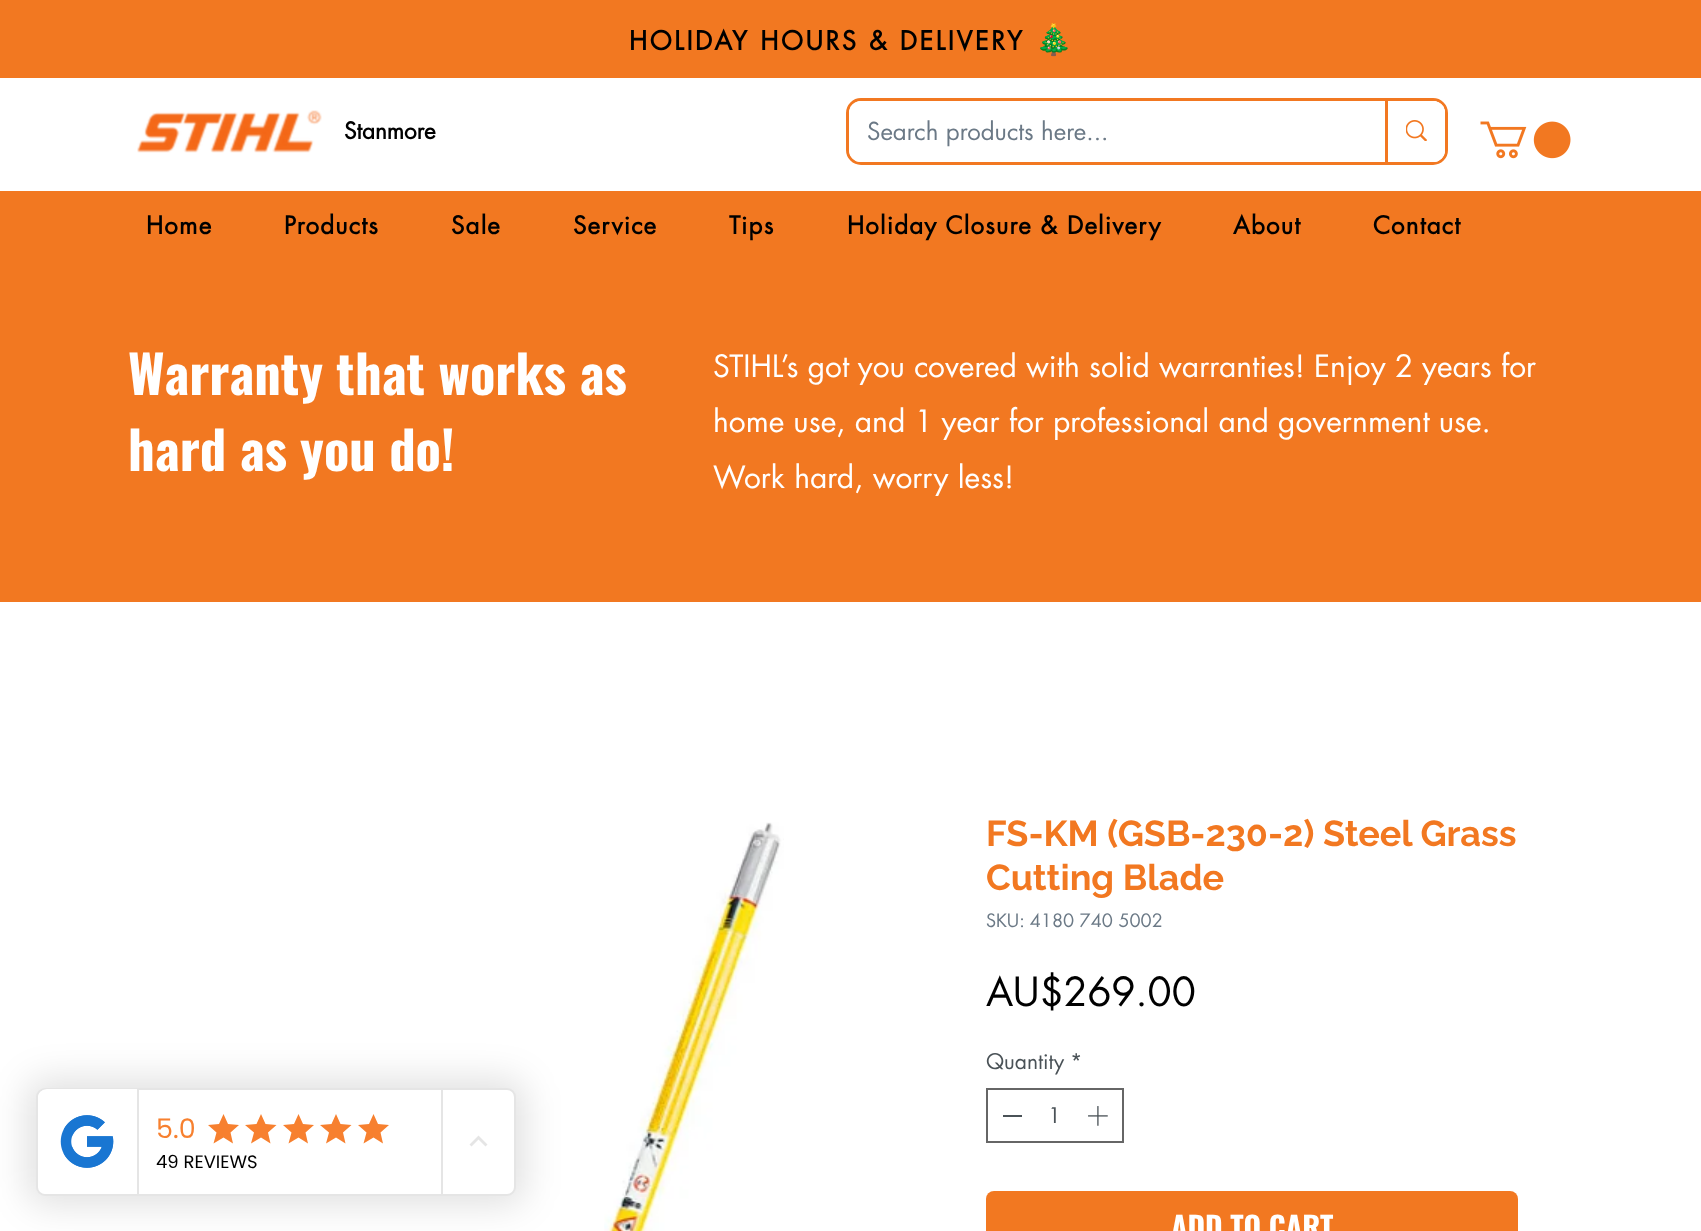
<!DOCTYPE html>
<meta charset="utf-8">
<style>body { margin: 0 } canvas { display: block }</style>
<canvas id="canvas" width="1701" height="1231"></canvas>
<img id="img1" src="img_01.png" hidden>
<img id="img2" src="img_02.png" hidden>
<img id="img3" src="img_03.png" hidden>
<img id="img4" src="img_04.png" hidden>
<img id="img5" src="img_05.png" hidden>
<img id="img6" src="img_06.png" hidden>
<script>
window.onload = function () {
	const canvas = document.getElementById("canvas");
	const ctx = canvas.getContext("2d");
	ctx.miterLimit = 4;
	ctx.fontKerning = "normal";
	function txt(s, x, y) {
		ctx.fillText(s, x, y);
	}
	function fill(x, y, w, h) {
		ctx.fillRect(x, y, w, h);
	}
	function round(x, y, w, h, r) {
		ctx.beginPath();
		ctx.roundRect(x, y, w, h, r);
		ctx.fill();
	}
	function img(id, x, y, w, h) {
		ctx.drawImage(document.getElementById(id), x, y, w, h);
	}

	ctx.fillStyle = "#FFFFFF";
	fill(0, 0, 1701, 1231);
	ctx.fillStyle = "#F27821";
	fill(0, 0, 1701, 78);
	img("img1", 137, 110, 185, 43);
	ctx.beginPath();
	ctx.roundRect(847.5, 99.5, 599, 64, 13.5);
	ctx.strokeStyle = "#F27821";
	ctx.lineWidth = 3;
	ctx.stroke();
	ctx.fillStyle = "#FFFFFF";
	round(849, 101, 596, 61, 12);
	ctx.beginPath();
	ctx.roundRect(1385, 101, 60, 61, [0, 12, 12, 0]);
	ctx.fill();
	ctx.fillStyle = "#F27821";
	fill(1385, 101, 3, 61);
	img("img2", 1406, 120, 21, 21);
	img("img3", 1480, 121, 91, 38);
	fill(0, 191, 1701, 411);
	img("img4", 604, 822, 180, 409);
	ctx.strokeStyle = "#666666";
	ctx.lineWidth = 2;
	ctx.strokeRect(987, 1089, 136, 53);
	ctx.fillStyle = "#4A5257";
	fill(1003, 1115, 19, 2);
	img("img5", 1088, 1106, 20, 20);
	ctx.fillStyle = "#F27821";
	round(986, 1191, 532, 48, 8);
	ctx.fillStyle = "rgba(0, 0, 0, 0.12)";
	ctx.filter = "blur(18px)";
	ctx.beginPath();
	ctx.roundRect(27, 1079, 498, 126, 18);
	ctx.fill();
	ctx.filter = "none";
	ctx.fillStyle = "#FFFFFF";
	ctx.beginPath();
	ctx.roundRect(37, 1089, 478, 106, 8);
	ctx.fill();
	ctx.strokeStyle = "#E5E5E5";
	ctx.stroke();
	ctx.beginPath();
	ctx.roundRect(38, 1089, 100, 105, [9, 0, 0, 9]);
	ctx.fill();
	ctx.fillStyle = "#E5E5E5";
	fill(137, 1089, 2, 105);
	img("img6", 60, 1115, 54, 53);
	fill(441, 1089, 2, 105);
	ctx.fillStyle = "#F7802F";
	ctx.beginPath();
	ctx.moveTo(223.5, 1137.5);
	ctx.lineTo(233, 1143.5);
	ctx.lineTo(230.5, 1132.5);
	ctx.lineTo(239, 1125);
	ctx.lineTo(228, 1124);
	ctx.lineTo(223.5, 1114);
	ctx.lineTo(219, 1124);
	ctx.lineTo(208, 1125);
	ctx.lineTo(216.5, 1132.5);
	ctx.lineTo(213.5, 1143.5);
	ctx.closePath();
	ctx.fill();
	ctx.beginPath();
	ctx.moveTo(261, 1137.5);
	ctx.lineTo(270.5, 1143.5);
	ctx.lineTo(268, 1132.5);
	ctx.lineTo(276.5, 1125);
	ctx.lineTo(265.5, 1124);
	ctx.lineTo(261, 1114);
	ctx.lineTo(256.5, 1124);
	ctx.lineTo(245, 1125);
	ctx.lineTo(254, 1132.5);
	ctx.lineTo(251, 1143.5);
	ctx.closePath();
	ctx.fill();
	ctx.beginPath();
	ctx.moveTo(298.5, 1137.5);
	ctx.lineTo(308, 1143.5);
	ctx.lineTo(305.5, 1132.5);
	ctx.lineTo(314, 1125);
	ctx.lineTo(303, 1124);
	ctx.lineTo(298.5, 1114);
	ctx.lineTo(294, 1124);
	ctx.lineTo(283, 1125);
	ctx.lineTo(291.5, 1132.5);
	ctx.lineTo(288.5, 1143.5);
	ctx.closePath();
	ctx.fill();
	ctx.beginPath();
	ctx.moveTo(336, 1137.5);
	ctx.lineTo(345.5, 1143.5);
	ctx.lineTo(343, 1132.5);
	ctx.lineTo(351.5, 1125);
	ctx.lineTo(340.5, 1124);
	ctx.lineTo(336, 1114);
	ctx.lineTo(331.5, 1124);
	ctx.lineTo(320, 1125);
	ctx.lineTo(329, 1132.5);
	ctx.lineTo(326, 1143.5);
	ctx.closePath();
	ctx.fill();
	ctx.beginPath();
	ctx.moveTo(373.5, 1137.5);
	ctx.lineTo(383, 1143.5);
	ctx.lineTo(380.5, 1132.5);
	ctx.lineTo(389, 1125);
	ctx.lineTo(378, 1124);
	ctx.lineTo(373.5, 1114);
	ctx.lineTo(369, 1124);
	ctx.lineTo(358, 1125);
	ctx.lineTo(366.5, 1132.5);
	ctx.lineTo(363.5, 1143.5);
	ctx.closePath();
	ctx.fill();
	ctx.fillStyle = "#E5E5E5";
	ctx.beginPath();
	ctx.moveTo(471.5, 1146.5);
	ctx.lineTo(478.5, 1139.5);
	ctx.lineTo(485.5, 1146.5);
	ctx.lineTo(487.5, 1144.5);
	ctx.lineTo(478.5, 1135.5);
	ctx.lineTo(469.5, 1144.5);
	ctx.closePath();
	ctx.fill();
	ctx.letterSpacing = "2.55px";
	ctx.font = "bold 25.5px futura";
	ctx.fillStyle = "#000000";
	txt("HOLIDAY HOURS & DELIVERY", 629, 50);
	ctx.letterSpacing = "0px";
	ctx.font = "bold 30px Noto Color Emoji";
	txt("🎄", 1035, 50);
	ctx.font = "bold 22.5px futura";
	txt("Stanmore", 344, 139);
	ctx.font = "24px futura";
	ctx.fillStyle = "#6B7986";
	txt("Search products here...", 867, 140);
	ctx.letterSpacing = "1.2px";
	ctx.font = "bold 24px futura";
	ctx.fillStyle = "#000000";
	txt("Home", 146, 234);
	txt("Products", 284, 234);
	txt("Sale", 451, 234);
	txt("Service", 573, 234);
	txt("Tips", 729, 234);
	txt("Holiday Closure & Delivery", 847, 234);
	txt("About", 1233, 234);
	txt("Contact", 1373, 234);
	ctx.letterSpacing = "0px";
	ctx.font = "bold 52.5px Oswald";
	ctx.fillStyle = "#FFFFFF";
	txt("Warranty that works as", 128, 395);
	txt("hard as you do!", 128, 471);
	ctx.font = "30px futura";
	txt("STIHL’s got you covered with solid warranties! Enjoy 2 years for", 713, 377);
	txt("home use, and 1 year for professional and government use.", 713, 432);
	txt("Work hard, worry less!", 713, 488);
	ctx.font = "bold 36px Raleway";
	ctx.fillStyle = "#F27821";
	txt("FS-KM (GSB-230-2) Steel Grass", 986, 846);
	txt("Cutting Blade", 986, 890);
	ctx.font = "18px futura";
	ctx.fillStyle = "#6B7986";
	txt("SKU: 4180 740 5002", 986, 927);
	ctx.font = "39px futura";
	ctx.fillStyle = "#000000";
	txt("AU$269.00", 986, 1006);
	ctx.font = "21px futura";
	ctx.fillStyle = "#4A5257";
	txt("Quantity", 986, 1069);
	txt("*", 1070, 1069);
	txt("1", 1048, 1123);
	ctx.font = "bold 30px Oswald";
	ctx.fillStyle = "#FFFFFF";
	txt("ADD TO CART", 1171, 1239);
	ctx.font = "27px Poppins";
	ctx.fillStyle = "#F7802F";
	txt("5.0", 156, 1138);
	ctx.font = "18px Poppins";
	ctx.fillStyle = "#000000";
	txt("49 REVIEWS", 156, 1168);
};
</script>
